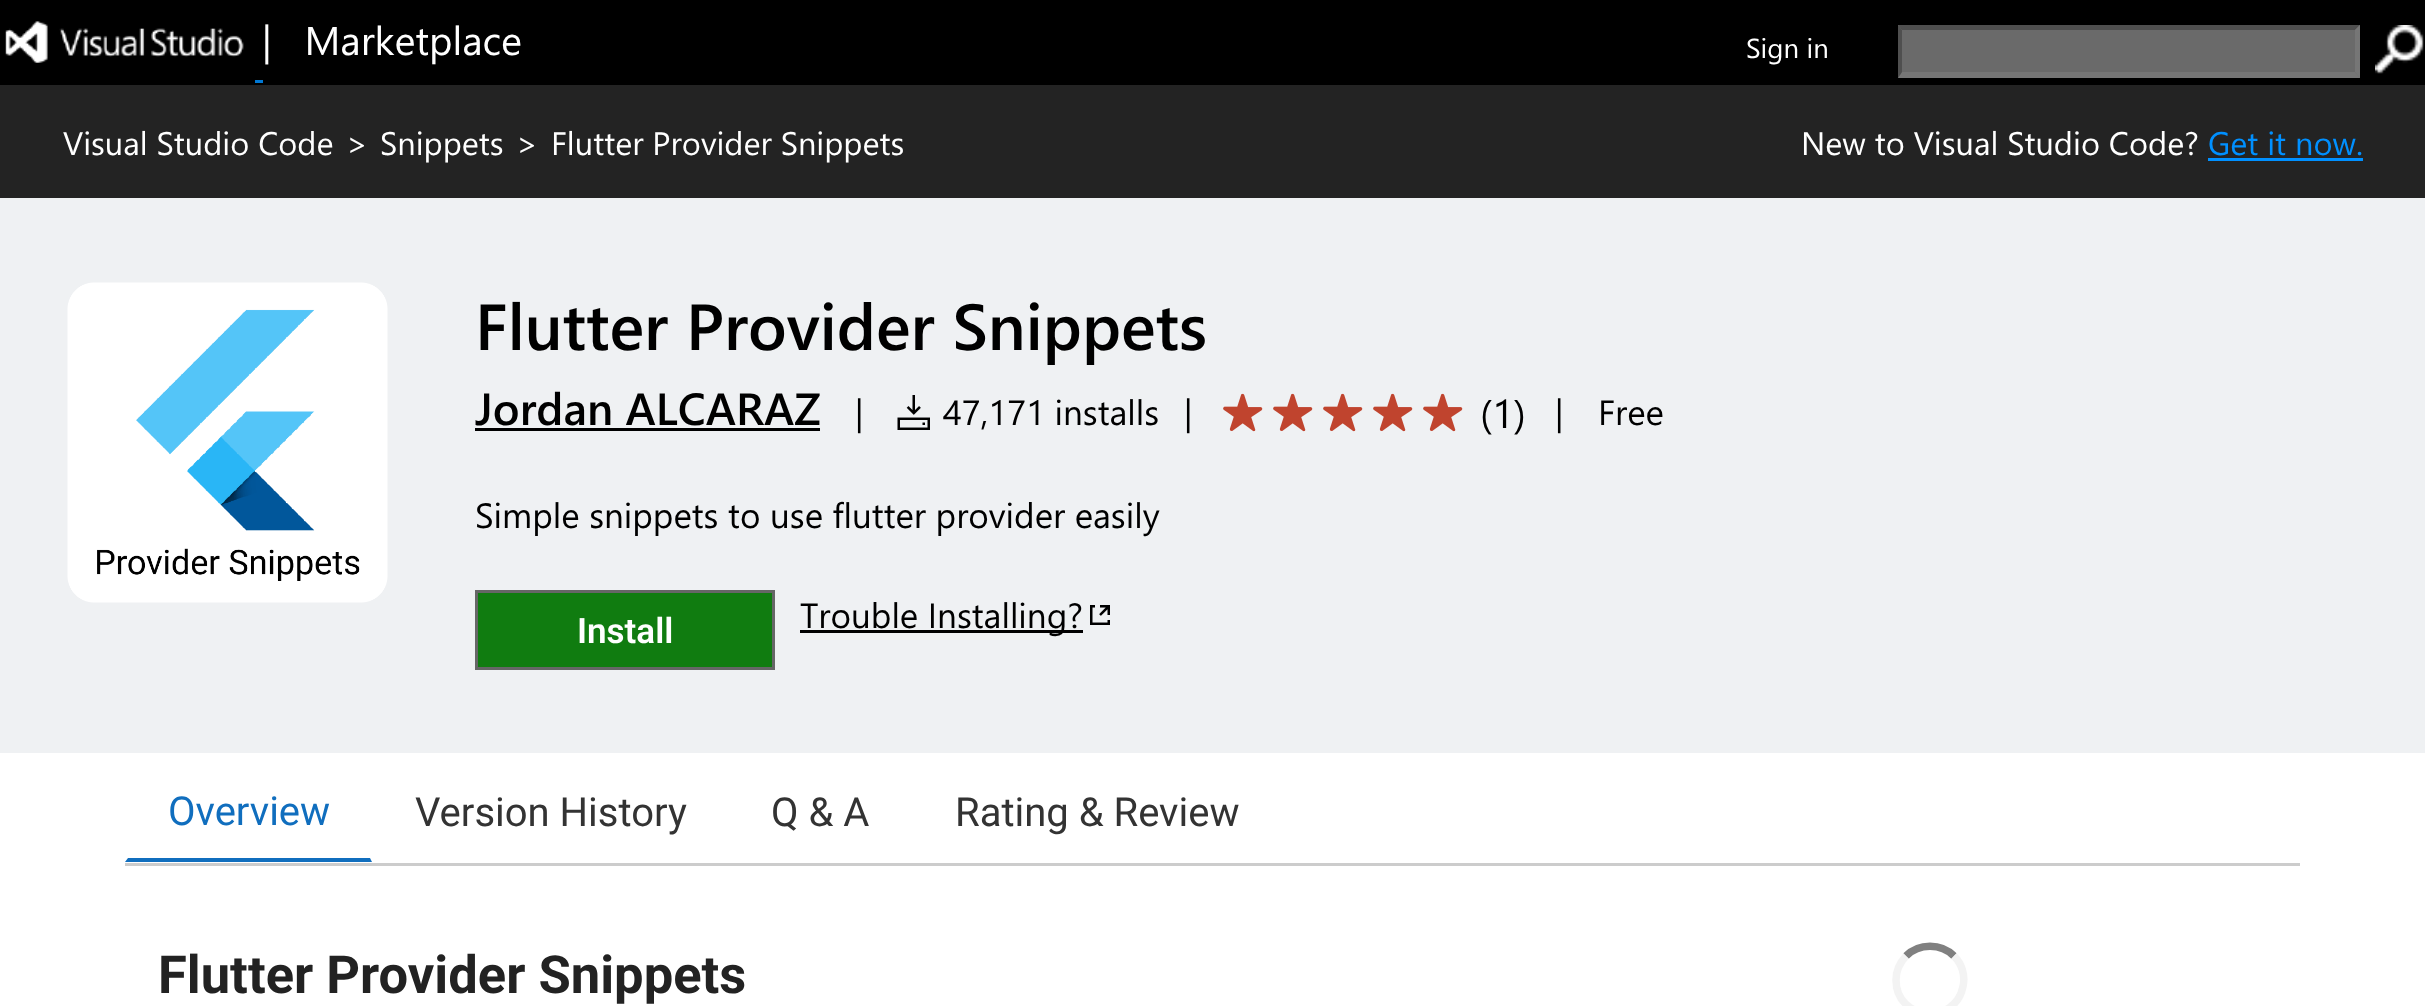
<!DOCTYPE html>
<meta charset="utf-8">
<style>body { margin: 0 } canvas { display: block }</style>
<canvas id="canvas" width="2425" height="1006"></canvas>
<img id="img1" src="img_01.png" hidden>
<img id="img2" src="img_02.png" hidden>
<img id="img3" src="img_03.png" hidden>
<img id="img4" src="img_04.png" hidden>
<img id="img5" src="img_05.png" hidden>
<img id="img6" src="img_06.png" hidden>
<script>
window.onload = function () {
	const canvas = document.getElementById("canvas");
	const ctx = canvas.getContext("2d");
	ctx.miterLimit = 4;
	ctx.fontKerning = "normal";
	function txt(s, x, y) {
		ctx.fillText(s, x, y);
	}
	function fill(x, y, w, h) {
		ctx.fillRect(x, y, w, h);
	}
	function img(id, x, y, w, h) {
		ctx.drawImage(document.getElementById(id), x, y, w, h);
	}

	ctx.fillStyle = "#FFFFFF";
	fill(0, 0, 2425, 1006);
	ctx.fillStyle = "#000000";
	fill(0, 0, 2425, 85);
	img("img1", 5, 21, 239, 42);
	ctx.fillStyle = "#0078D4";
	fill(255, 80, 8, 3);
	ctx.fillStyle = "#6A6A6A";
	fill(1898, 25, 462, 53);
	ctx.fillStyle = "#4F4F4F";
	ctx.beginPath();
	ctx.moveTo(1898, 25);
	ctx.lineTo(2360, 25);
	ctx.lineTo(2355, 30);
	ctx.lineTo(1902, 30);
	ctx.closePath();
	ctx.fill();
	ctx.fillStyle = "#767676";
	ctx.beginPath();
	ctx.moveTo(2360, 25);
	ctx.lineTo(2360, 78);
	ctx.lineTo(2355, 72);
	ctx.lineTo(2355, 30);
	ctx.closePath();
	ctx.fill();
	ctx.beginPath();
	ctx.moveTo(2360, 78);
	ctx.lineTo(1898, 78);
	ctx.lineTo(1902, 72);
	ctx.lineTo(2355, 72);
	ctx.closePath();
	ctx.fill();
	ctx.fillStyle = "#4F4F4F";
	ctx.beginPath();
	ctx.moveTo(1898, 78);
	ctx.lineTo(1898, 25);
	ctx.lineTo(1902, 30);
	ctx.lineTo(1902, 72);
	ctx.closePath();
	ctx.fill();
	img("img2", 2375, 25, 49, 49);
	ctx.fillStyle = "#232323";
	fill(0, 85, 2425, 113);
	ctx.fillStyle = "#0090FF";
	fill(2208, 158, 155, 3);
	ctx.fillStyle = "#EFF1F3";
	fill(0, 198, 2425, 555);
	img("img3", 67, 282, 321, 321);
	ctx.fillStyle = "#000000";
	fill(475, 428, 345, 3);
	img("img4", 897, 395, 33, 35);
	img("img5", 1223, 393, 40, 39);
	img("img5", 1273, 393, 40, 39);
	img("img5", 1323, 393, 40, 39);
	img("img5", 1373, 393, 40, 39);
	img("img5", 1423, 393, 40, 39);
	ctx.fillStyle = "#107C10";
	ctx.beginPath();
	ctx.rect(476.5, 591.5, 297, 77);
	ctx.fill();
	ctx.strokeStyle = "#666666";
	ctx.lineWidth = 3;
	ctx.stroke();
	ctx.fillStyle = "#000000";
	fill(800, 630, 283, 3);
	img("img6", 1090, 605, 20, 20);
	ctx.fillStyle = "#CCCCCC";
	fill(125, 863, 2175, 3);
	ctx.fillStyle = "#106EBE";
	ctx.beginPath();
	ctx.moveTo(372, 862);
	ctx.lineTo(125, 862);
	ctx.lineTo(128, 858);
	ctx.lineTo(370, 858);
	ctx.closePath();
	ctx.fill();
	ctx.beginPath();
	ctx.moveTo(1906, 956);
	ctx.bezierCurveTo(1919, 943, 1941, 943, 1954, 956);
	ctx.strokeStyle = "#808080";
	ctx.lineWidth = 7.5;
	ctx.stroke();
	ctx.beginPath();
	ctx.moveTo(1954, 956);
	ctx.bezierCurveTo(1962, 964, 1965.5, 975.5, 1963, 986.5);
	ctx.bezierCurveTo(1955, 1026, 1896, 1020.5, 1896, 980);
	ctx.bezierCurveTo(1896, 971, 1900, 962.5, 1906, 956);
	ctx.strokeStyle = "#F3F3F3";
	ctx.stroke();
	ctx.font = "40px Segoe UI";
	ctx.fillStyle = "#FFFFFF";
	txt("|   Marketplace", 262, 55);
	ctx.font = "27.5px Segoe UI";
	txt("Sign in", 1746, 58);
	ctx.font = "32.5px Segoe UI";
	txt("Visual Studio Code", 63, 155);
	txt(">", 346, 155);
	txt("Snippets", 380, 155);
	txt(">", 516, 155);
	txt("Flutter Provider Snippets", 551, 155);
	txt("New to Visual Studio Code?", 1801, 155);
	ctx.fillStyle = "#0090FF";
	txt("Get it now.", 2208, 155);
	ctx.font = "600 65px Segoe UI";
	ctx.fillStyle = "#000000";
	txt("Flutter Provider Snippets", 475, 350);
	ctx.font = "600 45px Segoe UI";
	txt("Jordan ALCARAZ", 475, 425);
	ctx.font = "35px Segoe UI";
	txt("|", 855, 425);
	txt("47,171 installs", 943, 425);
	txt("|", 1184, 425);
	ctx.font = "40px Segoe UI";
	txt("(1)", 1480, 428);
	ctx.font = "35px Segoe UI";
	txt("|", 1555, 425);
	txt("Free", 1598, 425);
	txt("Simple snippets to use flutter provider easily", 475, 528);
	ctx.font = "600 35px Roboto";
	ctx.fillStyle = "#FFFFFF";
	txt("Install", 577, 643);
	ctx.font = "35px Segoe UI";
	ctx.fillStyle = "#000000";
	txt("Trouble Installing?", 800, 628);
	ctx.font = "40px Roboto";
	ctx.fillStyle = "#106EBE";
	txt("Overview", 168, 825);
	ctx.fillStyle = "#333333";
	txt("Version History", 415, 826);
	txt("Q & A", 771, 826);
	txt("Rating & Review", 955, 826);
	ctx.font = "bold 52.5px Roboto";
	ctx.fillStyle = "#222222";
	txt("Flutter Provider Snippets", 158, 993);
};
</script>
